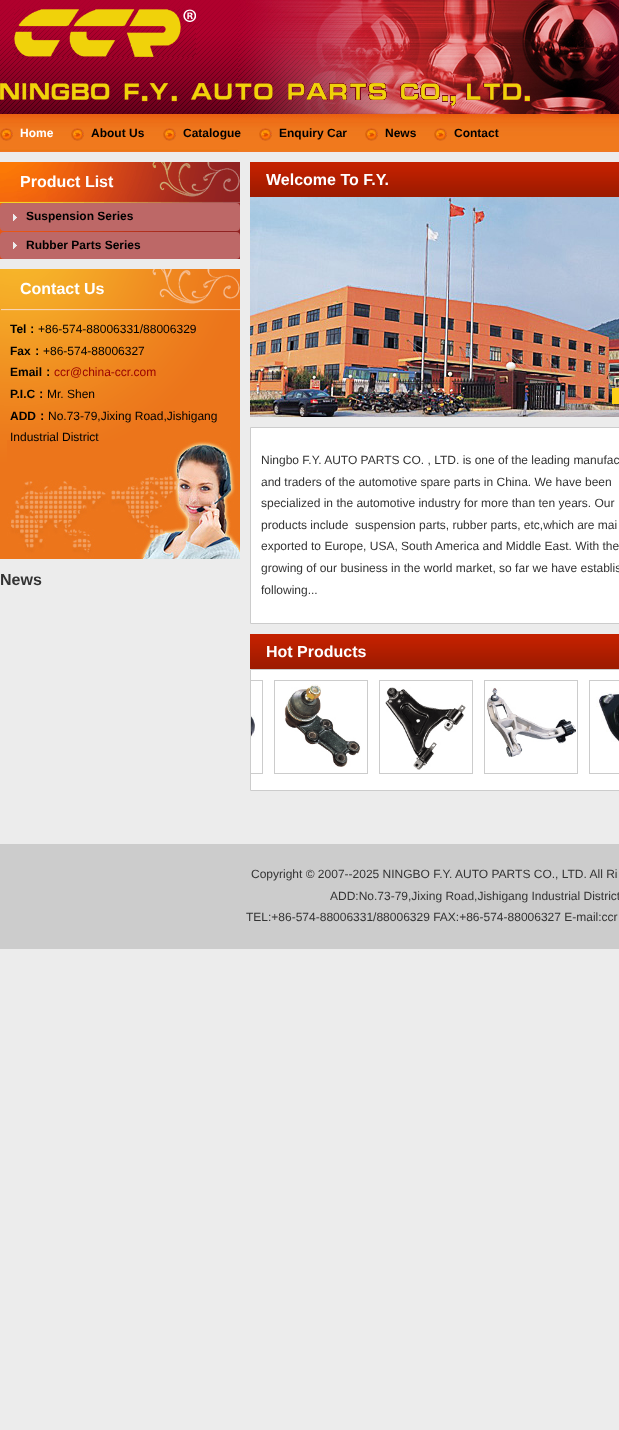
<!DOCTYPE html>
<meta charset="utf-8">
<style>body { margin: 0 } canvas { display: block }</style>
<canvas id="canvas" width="619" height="1430"></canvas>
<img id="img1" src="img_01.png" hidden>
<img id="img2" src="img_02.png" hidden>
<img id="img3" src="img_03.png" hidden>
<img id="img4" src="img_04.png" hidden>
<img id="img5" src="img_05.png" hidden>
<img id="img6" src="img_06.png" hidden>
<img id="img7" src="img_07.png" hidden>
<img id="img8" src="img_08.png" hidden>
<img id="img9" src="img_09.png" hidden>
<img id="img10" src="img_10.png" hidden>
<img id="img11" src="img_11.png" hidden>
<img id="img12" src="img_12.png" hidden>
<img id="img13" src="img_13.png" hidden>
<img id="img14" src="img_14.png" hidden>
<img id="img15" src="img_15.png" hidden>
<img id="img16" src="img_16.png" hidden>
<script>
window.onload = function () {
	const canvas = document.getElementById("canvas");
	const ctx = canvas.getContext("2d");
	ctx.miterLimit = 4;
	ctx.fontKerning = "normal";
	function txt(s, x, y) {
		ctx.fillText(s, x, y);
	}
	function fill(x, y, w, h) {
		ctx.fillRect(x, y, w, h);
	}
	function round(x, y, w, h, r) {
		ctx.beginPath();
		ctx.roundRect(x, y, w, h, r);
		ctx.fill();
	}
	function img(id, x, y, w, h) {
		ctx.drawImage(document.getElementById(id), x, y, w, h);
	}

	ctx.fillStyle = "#ECECEC";
	fill(0, 0, 619, 1430);
	img("img1", 0, 0, 619, 152);
	img("img2", 238, 0, 381, 151);
	img("img3", 14, 9, 182, 48);
	img("img4", 0, 83, 530, 23);
	img("img5", 0, 128, 13, 13);
	img("img5", 71, 128, 13, 13);
	img("img5", 163, 128, 13, 13);
	img("img5", 259, 128, 13, 13);
	img("img5", 365, 128, 13, 13);
	img("img5", 434, 128, 13, 13);
	img("img6", 0, 162, 240, 97);
	ctx.fillStyle = "#BD6867";
	round(0, 203, 240, 28, 4);
	img("img7", 13, 214, 4, 7);
	round(0, 232, 240, 27, 4);
	img("img7", 13, 242, 4, 7);
	img("img8", 0, 269, 240, 290);
	img("img9", 7, 440, 233, 119);
	img("img10", 250, 162, 369, 35);
	img("img11", 250, 197, 369, 220);
	ctx.fillStyle = "#FFD116";
	fill(612, 388, 7, 16);
	ctx.fillStyle = "#FFFFFF";
	ctx.beginPath();
	ctx.rect(250.5, 427.5, 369, 196);
	ctx.fill();
	ctx.strokeStyle = "#CCCCCC";
	ctx.stroke();
	img("img10", 250, 634, 369, 35);
	ctx.beginPath();
	ctx.rect(250.5, 669.5, 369, 121);
	ctx.fill();
	ctx.stroke();
	ctx.save();
	ctx.beginPath();
	ctx.rect(251, 670, 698, 110);
	ctx.clip();
	ctx.strokeRect(169.5, 680.5, 93, 93);
	ctx.restore();
	img("img12", 251, 715, 4, 22);
	ctx.strokeRect(274.5, 680.5, 93, 93);
	img("img13", 284, 684, 77, 83);
	ctx.strokeRect(379.5, 680.5, 93, 93);
	img("img14", 385, 687, 81, 83);
	ctx.strokeRect(484.5, 680.5, 93, 93);
	img("img15", 487, 687, 89, 70);
	ctx.strokeRect(589.5, 680.5, 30, 93);
	img("img16", 596, 692, 23, 50);
	ctx.fillStyle = "#CCCCCC";
	fill(0, 844, 619, 105);
	ctx.font = "bold 12px Liberation Sans";
	ctx.fillStyle = "#FFFFFF";
	txt("Home", 20, 137);
	ctx.fillStyle = "#000000";
	txt("About Us", 91, 137);
	txt("Catalogue", 183, 137);
	txt("Enquiry Car", 279, 137);
	txt("News", 385, 137);
	txt("Contact", 454, 137);
	ctx.font = "bold 16px Liberation Sans";
	ctx.fillStyle = "#FFFFFF";
	txt("Product List", 20, 187);
	ctx.font = "bold 12px Liberation Sans";
	ctx.fillStyle = "#000000";
	txt("Suspension Series", 26, 220);
	txt("Rubber Parts Series", 26, 249);
	ctx.font = "bold 16px Liberation Sans";
	ctx.fillStyle = "#FFFFFF";
	txt("Contact Us", 20, 294);
	ctx.font = "bold 12px Liberation Sans";
	ctx.fillStyle = "#000000";
	txt("Tel", 10, 333);
	ctx.font = "bold 12px WenQuanYi Zen Hei";
	txt("：", 26, 333);
	ctx.font = "12px Liberation Sans";
	txt("+86-574-88006331/88006329", 38, 333);
	ctx.font = "bold 12px Liberation Sans";
	txt("Fax", 10, 355);
	ctx.font = "bold 12px WenQuanYi Zen Hei";
	txt("：", 31, 355);
	ctx.font = "12px Liberation Sans";
	txt("+86-574-88006327", 43, 355);
	ctx.font = "bold 12px Liberation Sans";
	txt("Email", 10, 376);
	ctx.font = "bold 12px WenQuanYi Zen Hei";
	txt("：", 42, 376);
	ctx.font = "12px Liberation Sans";
	ctx.fillStyle = "#990000";
	txt("ccr@china-ccr.com", 54, 376);
	ctx.font = "bold 12px Liberation Sans";
	ctx.fillStyle = "#000000";
	txt("P.I.C", 10, 398);
	ctx.font = "bold 12px WenQuanYi Zen Hei";
	txt("：", 35, 398);
	ctx.font = "12px Liberation Sans";
	txt("Mr. Shen", 47, 398);
	ctx.font = "bold 12px Liberation Sans";
	txt("ADD", 10, 420);
	ctx.font = "bold 12px WenQuanYi Zen Hei";
	txt("：", 36, 420);
	ctx.font = "12px Liberation Sans";
	txt("No.73-79,Jixing Road,Jishigang", 48, 420);
	txt("Industrial District", 10, 441);
	ctx.font = "bold 16px Liberation Sans";
	ctx.fillStyle = "#333333";
	txt("News", 0, 585);
	ctx.fillStyle = "#FFFFFF";
	txt("Welcome To F.Y.", 266, 185);
	ctx.font = "12px Liberation Sans";
	ctx.fillStyle = "#333333";
	txt("Ningbo F.Y. AUTO PARTS CO. , LTD. is one of the leading manufac", 261, 464);
	txt("and traders of the automotive spare parts in China. We have been", 261, 486);
	txt("specialized in the automotive industry for more than ten years. Our", 261, 507);
	txt("products include  suspension parts, rubber parts, etc,which are mai", 261, 529);
	txt("exported to Europe, USA, South America and Middle East. With the", 261, 550);
	txt("growing of our business in the world market, so far we have establis", 261, 572);
	txt("following...", 261, 594);
	ctx.font = "bold 16px Liberation Sans";
	ctx.fillStyle = "#FFFFFF";
	txt("Hot Products", 266, 657);
	ctx.font = "12px Liberation Sans";
	ctx.fillStyle = "#333333";
	txt("Copyright © 2007--2025 NINGBO F.Y. AUTO PARTS CO., LTD. All Ri", 251, 878);
	txt("ADD:No.73-79,Jixing Road,Jishigang Industrial District", 330, 900);
	txt("TEL:+86-574-88006331/88006329 FAX:+86-574-88006327 E-mail:ccr", 246, 921);
};
</script>
